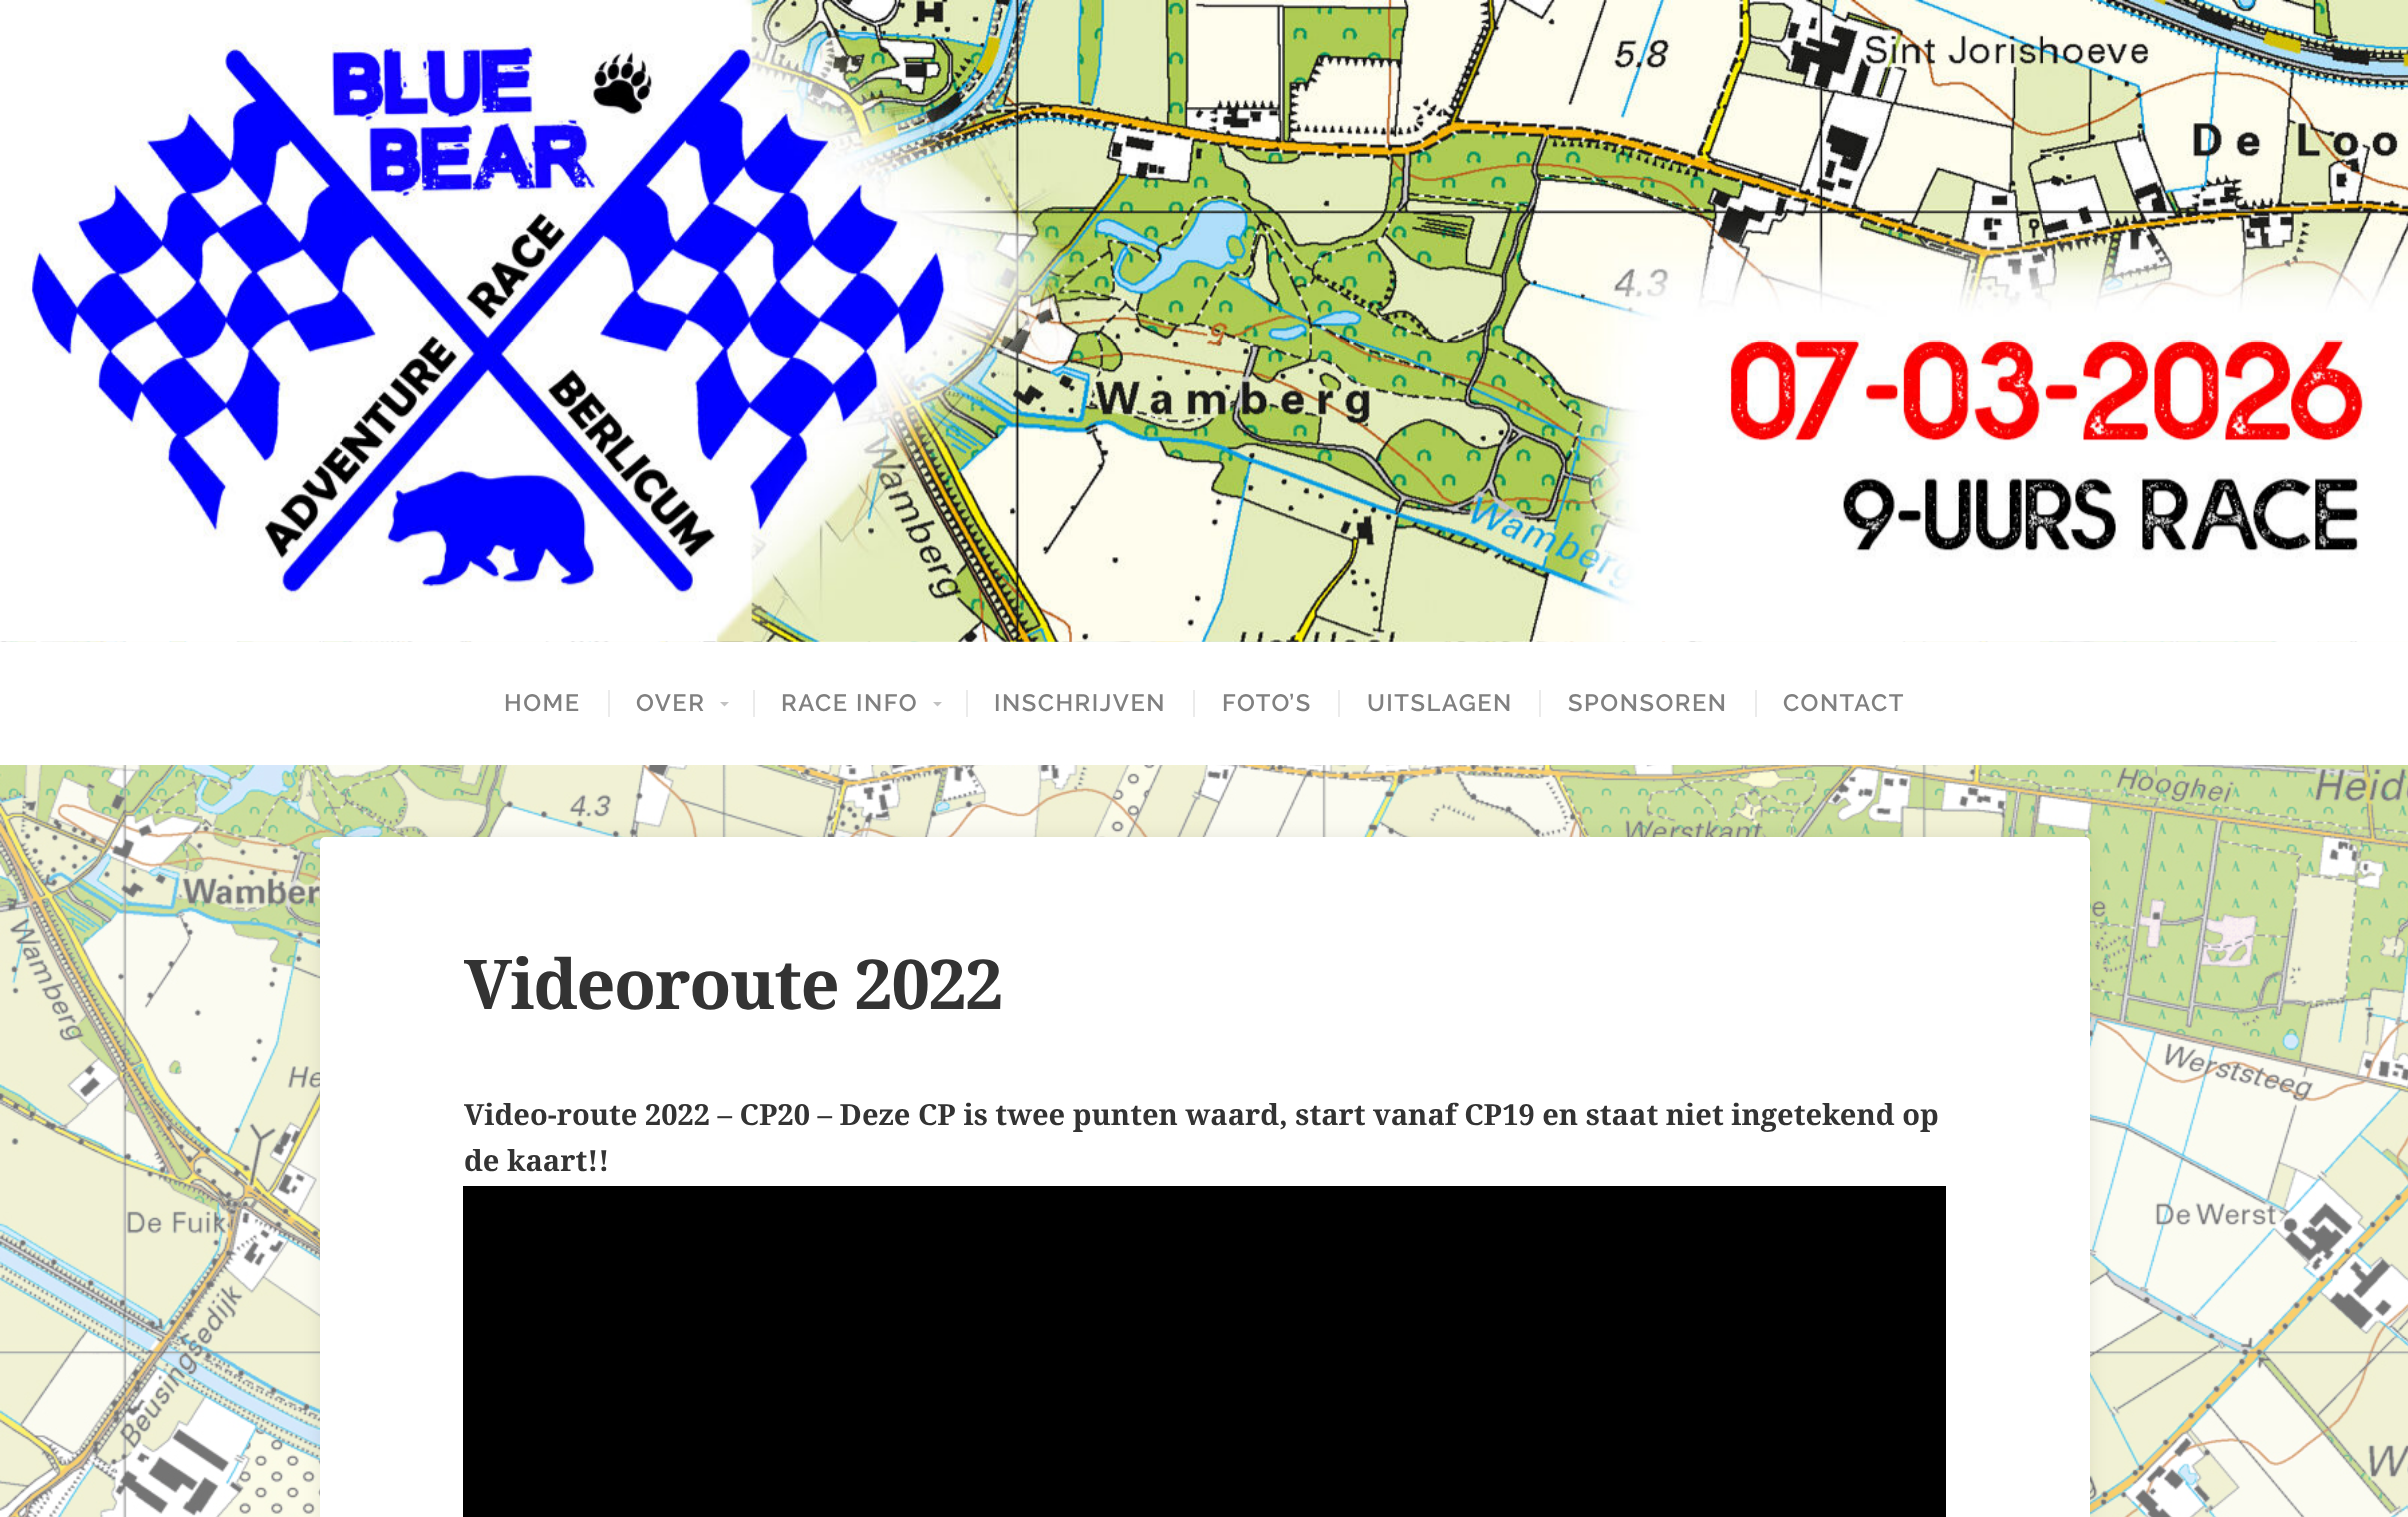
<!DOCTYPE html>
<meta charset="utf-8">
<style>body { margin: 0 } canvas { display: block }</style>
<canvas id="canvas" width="2408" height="1517"></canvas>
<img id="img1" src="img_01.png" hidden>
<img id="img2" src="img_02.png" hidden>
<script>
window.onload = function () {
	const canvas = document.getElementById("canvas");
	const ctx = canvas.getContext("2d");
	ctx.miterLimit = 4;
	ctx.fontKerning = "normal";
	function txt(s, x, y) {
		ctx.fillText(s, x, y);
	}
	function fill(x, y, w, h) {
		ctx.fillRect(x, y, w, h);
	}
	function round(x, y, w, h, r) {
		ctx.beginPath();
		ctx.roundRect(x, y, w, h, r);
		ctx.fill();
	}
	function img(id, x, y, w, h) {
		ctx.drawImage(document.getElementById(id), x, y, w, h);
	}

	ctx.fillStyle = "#FFFFFF";
	fill(0, 0, 2408, 1517);
	img("img1", 0, 641, 2408, 876);
	img("img2", 0, 0, 2408, 642);
	fill(0, 642, 2408, 123);
	ctx.fillStyle = "#EBEBEB";
	fill(608, 690, 2, 27);
	ctx.fillStyle = "#C2C2C2";
	ctx.beginPath();
	ctx.moveTo(720, 702);
	ctx.lineTo(729, 702);
	ctx.lineTo(724.5, 706.5);
	ctx.closePath();
	ctx.fill();
	ctx.fillStyle = "#EBEBEB";
	fill(753, 690, 2, 27);
	ctx.fillStyle = "#C2C2C2";
	ctx.beginPath();
	ctx.moveTo(933, 702);
	ctx.lineTo(942, 702);
	ctx.lineTo(937.5, 706.5);
	ctx.closePath();
	ctx.fill();
	ctx.fillStyle = "#EBEBEB";
	fill(966, 690, 2, 27);
	fill(1193, 690, 2, 27);
	fill(1338, 690, 2, 27);
	fill(1539, 690, 2, 27);
	fill(1755, 690, 2, 27);
	ctx.fillStyle = "rgba(0, 0, 0, 0.08)";
	ctx.filter = "blur(9px)";
	ctx.beginPath();
	ctx.roundRect(320, 837, 1770, 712, 5);
	ctx.fill();
	ctx.filter = "none";
	ctx.fillStyle = "#FFFFFF";
	round(320, 837, 1770, 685, 5);
	ctx.fillStyle = "#000000";
	fill(463, 1186, 1483, 331);
	ctx.letterSpacing = "1.5px";
	ctx.font = "600 23.75px Raleway";
	ctx.fillStyle = "#808080";
	txt("HOME", 504, 711);
	txt("OVER", 636, 711);
	txt("RACE INFO", 781, 711);
	txt("INSCHRIJVEN", 994, 711);
	txt("FOTO’S", 1222, 711);
	txt("UITSLAGEN", 1367, 711);
	txt("SPONSOREN", 1568, 711);
	txt("CONTACT", 1783, 711);
	ctx.letterSpacing = "-1.5px";
	ctx.font = "bold 68.75px Droid Serif";
	ctx.fillStyle = "#333333";
	txt("Videoroute 2022", 464, 1009);
	ctx.letterSpacing = "0px";
	ctx.font = "bold 29.05px Droid Serif";
	txt("Video-route 2022 – CP20 – Deze CP is twee punten waard, start vanaf CP19 en staat niet ingetekend op", 464, 1125);
	txt("de kaart!!", 464, 1171);
};
</script>
